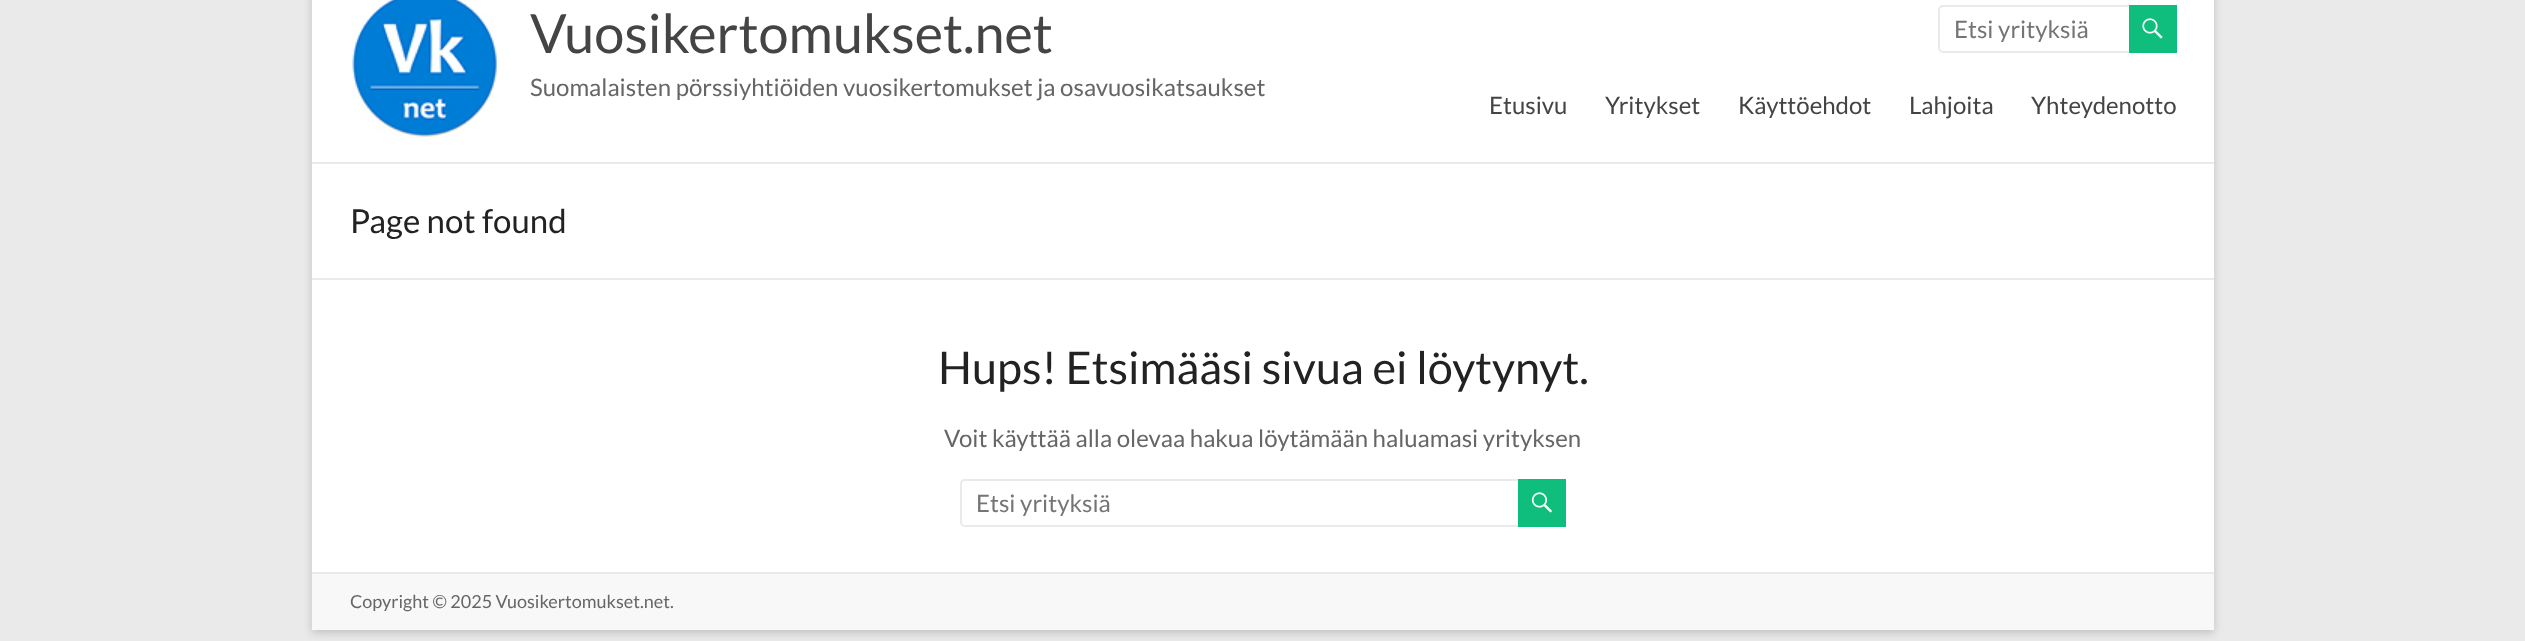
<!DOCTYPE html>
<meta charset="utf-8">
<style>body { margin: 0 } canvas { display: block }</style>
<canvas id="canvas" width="2525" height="641"></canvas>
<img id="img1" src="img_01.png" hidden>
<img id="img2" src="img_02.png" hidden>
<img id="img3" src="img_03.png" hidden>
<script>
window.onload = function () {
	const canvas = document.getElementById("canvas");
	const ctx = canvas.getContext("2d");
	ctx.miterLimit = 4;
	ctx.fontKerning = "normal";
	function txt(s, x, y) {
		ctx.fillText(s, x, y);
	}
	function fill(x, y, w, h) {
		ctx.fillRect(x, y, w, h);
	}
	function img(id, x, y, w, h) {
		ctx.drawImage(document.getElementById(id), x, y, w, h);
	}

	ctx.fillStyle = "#EAEAEA";
	fill(0, 0, 2525, 641);
	ctx.fillStyle = "rgba(100, 100, 100, 0.3)";
	ctx.filter = "blur(4.5px)";
	ctx.beginPath();
	ctx.rect(312, -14, 1902, 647);
	ctx.fill();
	ctx.filter = "none";
	ctx.fillStyle = "#FFFFFF";
	fill(312, 0, 1902, 572);
	ctx.fillStyle = "#EAEAEA";
	fill(312, 162, 1902, 2);
	img("img1", 352, 0, 146, 137);
	ctx.beginPath();
	ctx.roundRect(1939, 6, 193, 46, 4);
	ctx.strokeStyle = "#EAEAEA";
	ctx.lineWidth = 2;
	ctx.stroke();
	ctx.fillStyle = "#0FBE7C";
	fill(2129, 5, 48, 48);
	img("img2", 2142, 18, 21, 21);
	ctx.fillStyle = "#EAEAEA";
	fill(312, 278, 1902, 2);
	ctx.beginPath();
	ctx.roundRect(961, 480, 561, 46, 4);
	ctx.stroke();
	ctx.fillStyle = "#0FBE7C";
	fill(1518, 479, 48, 48);
	img("img3", 1531, 492, 21, 21);
	ctx.fillStyle = "#F8F8F8";
	fill(312, 574, 1902, 56);
	ctx.fillStyle = "#EAEAEA";
	fill(312, 572, 1902, 2);
	ctx.font = "54px Lato";
	ctx.fillStyle = "#444444";
	txt("Vuosikertomukset.net", 530, 53);
	ctx.font = "24px Lato";
	ctx.fillStyle = "#666666";
	txt("Suomalaisten pörssiyhtiöiden vuosikertomukset ja osavuosikatsaukset", 530, 96);
	ctx.fillStyle = "#757575";
	txt("Etsi yrityksiä", 1954, 38);
	ctx.fillStyle = "#444444";
	txt("Etusivu", 1489, 114);
	txt("Yritykset", 1605, 114);
	txt("Käyttöehdot", 1738, 114);
	txt("Lahjoita", 1909, 114);
	txt("Yhteydenotto", 2031, 114);
	ctx.font = "33px Lato";
	ctx.fillStyle = "#222222";
	txt("Page not found", 350, 233);
	ctx.font = "45px Lato";
	txt("Hups! Etsimääsi sivua ei löytynyt.", 938, 384);
	ctx.font = "24px Lato";
	ctx.fillStyle = "#666666";
	txt("Voit käyttää alla olevaa hakua löytämään haluamasi yrityksen", 944, 447);
	ctx.fillStyle = "#757575";
	txt("Etsi yrityksiä", 976, 512);
	ctx.font = "18px Lato";
	ctx.fillStyle = "#666666";
	txt("Copyright © 2025 Vuosikertomukset.net.", 350, 608);
};
</script>
